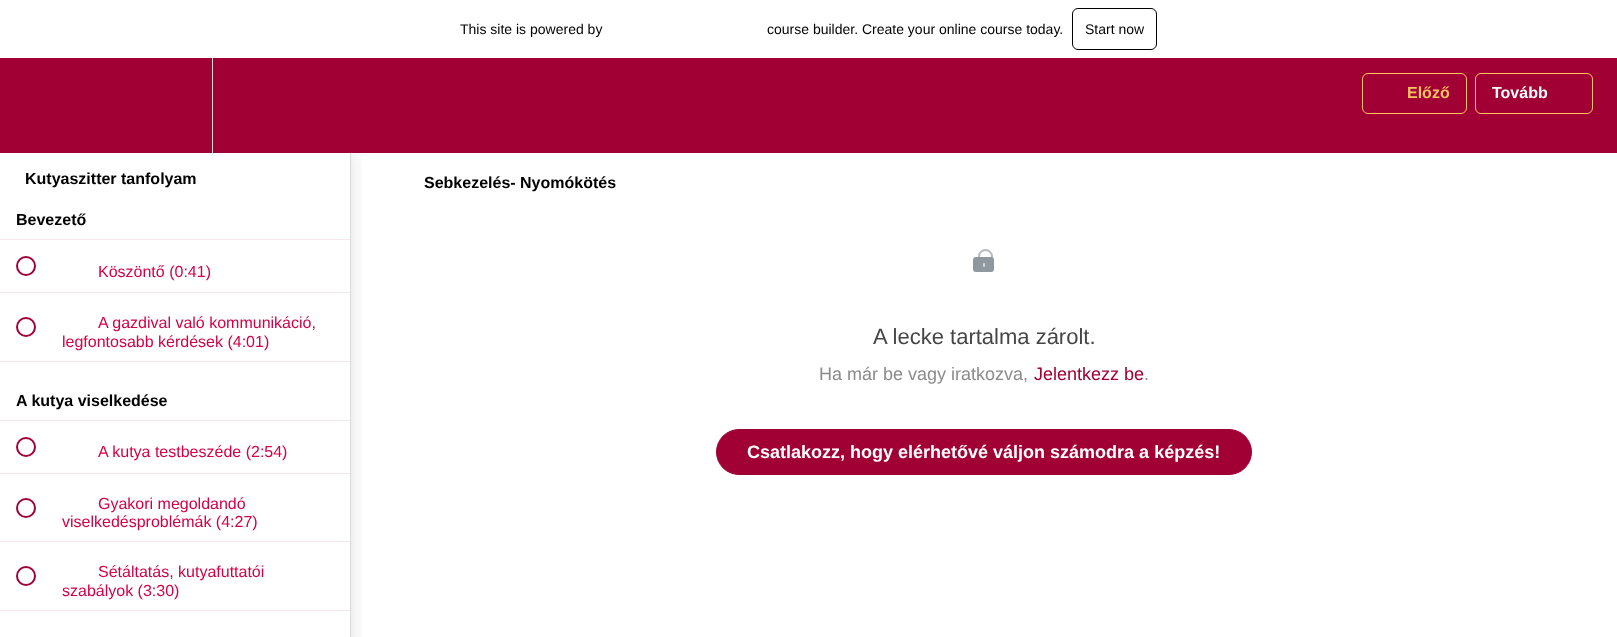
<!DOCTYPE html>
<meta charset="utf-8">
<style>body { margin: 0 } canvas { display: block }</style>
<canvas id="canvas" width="1617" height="637"></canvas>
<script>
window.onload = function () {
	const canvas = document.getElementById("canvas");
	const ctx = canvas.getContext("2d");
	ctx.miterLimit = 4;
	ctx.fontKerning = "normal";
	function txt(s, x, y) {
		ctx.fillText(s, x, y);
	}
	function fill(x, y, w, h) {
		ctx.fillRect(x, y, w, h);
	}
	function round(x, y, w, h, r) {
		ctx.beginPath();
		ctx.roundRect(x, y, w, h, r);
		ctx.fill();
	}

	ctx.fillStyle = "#FFFFFF";
	fill(0, 0, 1617, 637);
	ctx.save();
	ctx.beginPath();
	ctx.rect(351, 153, 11, 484);
	ctx.clip();
	ctx.fillStyle = "rgba(32, 39, 45, 0.15)";
	ctx.filter = "blur(10px)";
	ctx.beginPath();
	ctx.rect(0, 151, 351, 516);
	ctx.fill();
	ctx.filter = "none";
	ctx.restore();
	ctx.fillStyle = "#D7DADB";
	fill(350, 145, 1, 492);
	ctx.fillStyle = "#A10035";
	fill(0, 58, 1617, 95);
	ctx.beginPath();
	ctx.roundRect(1072.5, 8.5, 84, 41, 5.5);
	ctx.strokeStyle = "#000000";
	ctx.stroke();
	ctx.fillStyle = "#D7DADB";
	fill(212, 58, 1, 95);
	ctx.beginPath();
	ctx.roundRect(1362.5, 73.5, 104, 40, 5.5);
	ctx.strokeStyle = "#FEC260";
	ctx.stroke();
	ctx.beginPath();
	ctx.roundRect(1475.5, 73.5, 117, 40, 5.5);
	ctx.stroke();
	ctx.fillStyle = "#F6E6EB";
	fill(0, 239, 350, 1);
	fill(0, 292, 350, 1);
	ctx.beginPath();
	ctx.arc(26, 266, 9, 0, Math.PI * 2);
	ctx.strokeStyle = "#A10035";
	ctx.lineWidth = 2;
	ctx.stroke();
	fill(0, 361, 350, 1);
	ctx.beginPath();
	ctx.arc(26, 327, 9, 0, Math.PI * 2);
	ctx.stroke();
	fill(0, 420, 350, 1);
	fill(0, 473, 350, 1);
	ctx.beginPath();
	ctx.arc(26, 447, 9, 0, Math.PI * 2);
	ctx.stroke();
	fill(0, 541, 350, 1);
	ctx.beginPath();
	ctx.arc(26, 508, 9, 0, Math.PI * 2);
	ctx.stroke();
	fill(0, 610, 350, 1);
	ctx.beginPath();
	ctx.arc(26, 576, 9, 0, Math.PI * 2);
	ctx.stroke();
	ctx.beginPath();
	ctx.roundRect(979, 250, 13, 20, 6.5);
	ctx.strokeStyle = "#B5BABF";
	ctx.stroke();
	ctx.fillStyle = "#8F989F";
	round(973, 257, 21, 15, 3);
	ctx.fillStyle = "#D3D7DC";
	round(983, 263, 2, 4, 1);
	ctx.fillStyle = "#A10035";
	ctx.beginPath();
	ctx.roundRect(716.5, 429.5, 535, 45, 22.5);
	ctx.fill();
	ctx.strokeStyle = "#A10035";
	ctx.lineWidth = 1;
	ctx.stroke();
	ctx.font = "14px Liberation Sans";
	ctx.fillStyle = "#000000";
	txt("This site is powered by", 460, 34);
	txt("course builder. Create your online course today.", 767, 34);
	txt("Start now", 1085, 34);
	ctx.font = "bold 16px Liberation Sans";
	ctx.fillStyle = "#FEC260";
	txt("Előző", 1407, 98);
	ctx.fillStyle = "#FFFFFF";
	txt("Tovább", 1492, 98);
	ctx.fillStyle = "#000000";
	txt("Kutyaszitter tanfolyam", 25, 184);
	txt("Bevezető", 16, 225);
	ctx.font = "16px Liberation Sans";
	ctx.fillStyle = "#D40046";
	txt("Köszöntő (0:41)", 98, 277);
	txt("A gazdival való kommunikáció,", 98, 328);
	txt("legfontosabb kérdések (4:01)", 62, 347);
	ctx.font = "bold 16px Liberation Sans";
	ctx.fillStyle = "#000000";
	txt("A kutya viselkedése", 16, 406);
	ctx.font = "16px Liberation Sans";
	ctx.fillStyle = "#D40046";
	txt("A kutya testbeszéde (2:54)", 98, 457);
	txt("Gyakori megoldandó", 98, 509);
	txt("viselkedésproblémák (4:27)", 62, 527);
	txt("Sétáltatás, kutyafuttatói", 98, 577);
	txt("szabályok (3:30)", 62, 596);
	ctx.font = "bold 16px Liberation Sans";
	ctx.fillStyle = "#000000";
	txt("Sebkezelés- Nyomókötés", 424, 188);
	ctx.font = "22px Liberation Sans";
	ctx.fillStyle = "#454545";
	txt("A lecke tartalma zárolt.", 873, 344);
	ctx.font = "18px Liberation Sans";
	ctx.fillStyle = "#8B8B8B";
	txt("Ha már be vagy iratkozva,", 819, 380);
	ctx.fillStyle = "#A10035";
	txt("Jelentkezz be", 1034, 380);
	ctx.fillStyle = "#8B8B8B";
	txt(".", 1144, 380);
	ctx.font = "bold 18px Liberation Sans";
	ctx.fillStyle = "#FFFFFF";
	txt("Csatlakozz, hogy elérhetővé váljon számodra a képzés!", 747, 458);
};
</script>
